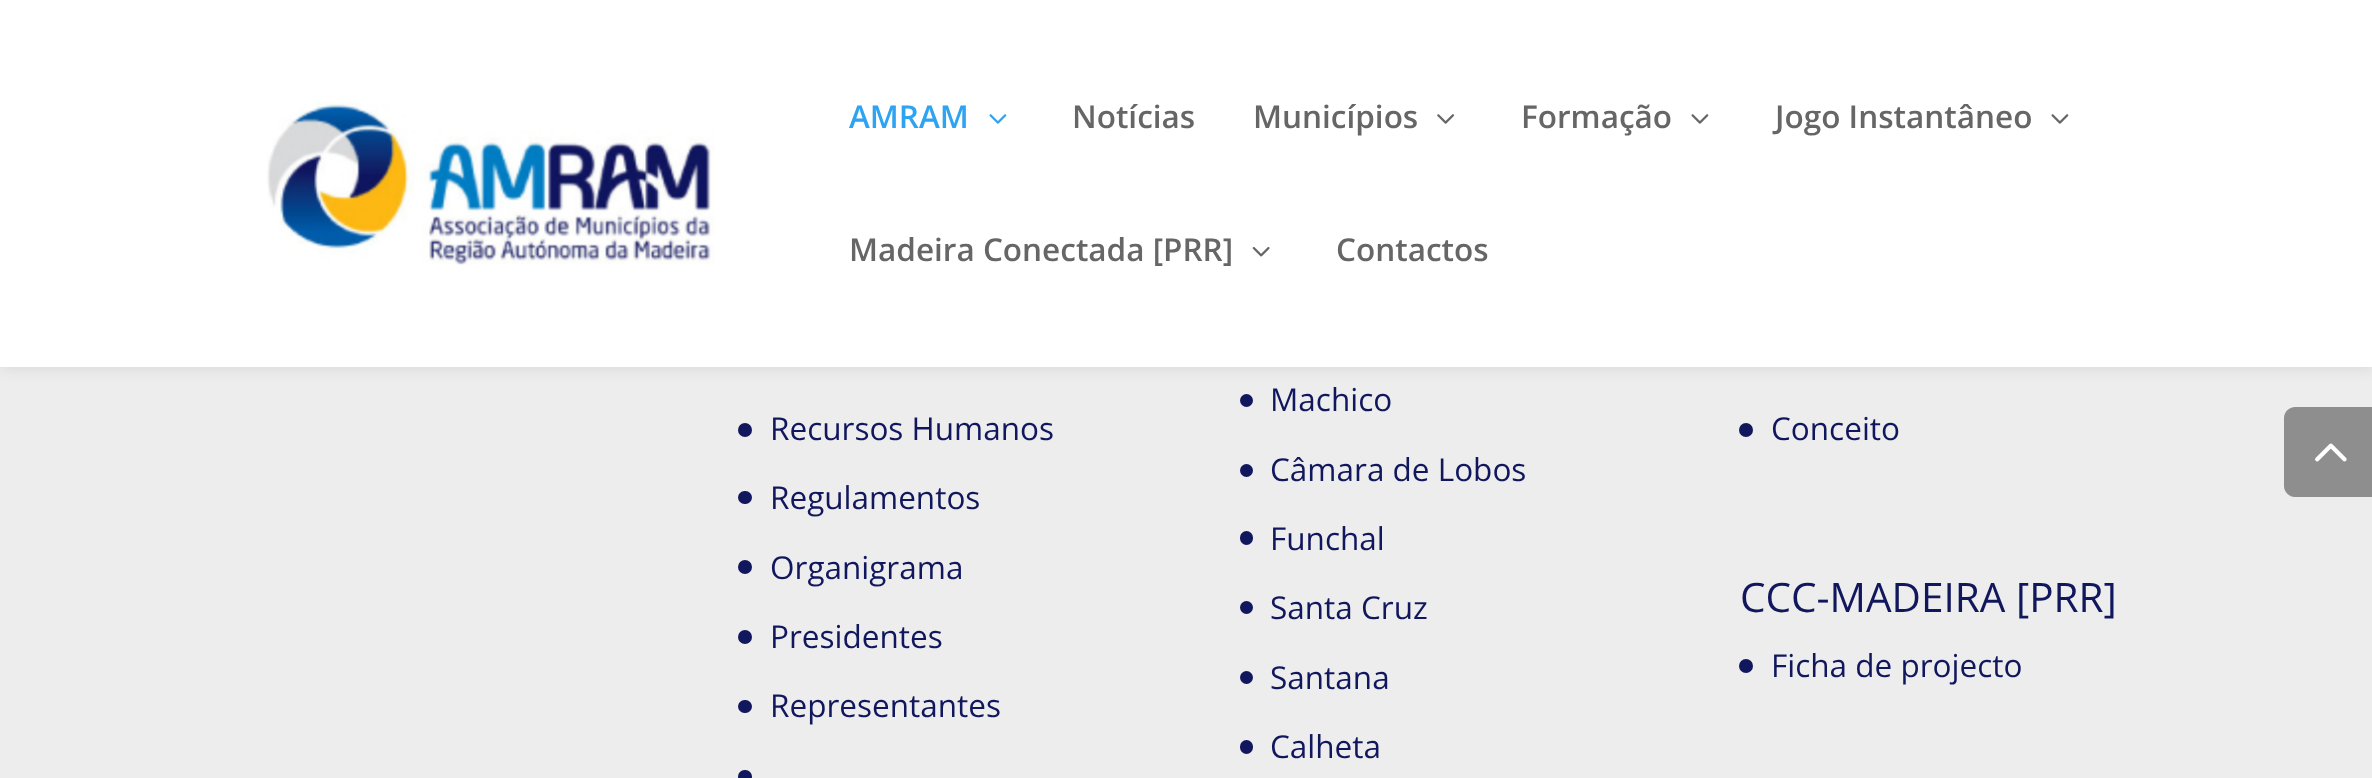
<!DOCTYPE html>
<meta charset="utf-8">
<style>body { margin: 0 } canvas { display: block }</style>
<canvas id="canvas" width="2372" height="778"></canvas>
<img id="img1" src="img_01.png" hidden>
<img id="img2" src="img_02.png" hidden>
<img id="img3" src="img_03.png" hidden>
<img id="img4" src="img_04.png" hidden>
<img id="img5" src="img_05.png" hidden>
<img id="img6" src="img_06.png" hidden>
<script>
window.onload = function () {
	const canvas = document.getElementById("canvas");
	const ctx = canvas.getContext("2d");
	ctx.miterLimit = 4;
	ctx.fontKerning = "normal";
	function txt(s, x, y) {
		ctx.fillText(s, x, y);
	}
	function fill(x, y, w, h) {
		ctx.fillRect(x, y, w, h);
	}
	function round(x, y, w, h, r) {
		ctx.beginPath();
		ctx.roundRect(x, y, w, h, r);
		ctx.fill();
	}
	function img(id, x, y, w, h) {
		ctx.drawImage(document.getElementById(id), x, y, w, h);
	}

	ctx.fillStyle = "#EDEDED";
	fill(0, 0, 2372, 778);
	ctx.fillStyle = "rgba(0, 0, 0, 0.1)";
	ctx.filter = "blur(8px)";
	ctx.beginPath();
	ctx.rect(0, 0, 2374, 367);
	ctx.fill();
	ctx.filter = "none";
	ctx.fillStyle = "#FFFFFF";
	fill(0, 0, 2372, 367);
	img("img1", 267, 101, 448, 164);
	img("img2", 989, 114, 18, 10);
	img("img3", 1437, 114, 17, 10);
	img("img4", 1691, 114, 18, 10);
	img("img4", 2051, 114, 18, 10);
	img("img5", 1252, 247, 18, 10);
	ctx.fillStyle = "#11175D";
	ctx.beginPath();
	ctx.arc(745, 430, 7, 0, Math.PI * 2);
	ctx.fill();
	round(738, 491, 14, 13, 6.5);
	ctx.beginPath();
	ctx.arc(745, 567, 7, 0, Math.PI * 2);
	ctx.fill();
	ctx.beginPath();
	ctx.arc(745, 637, 7, 0, Math.PI * 2);
	ctx.fill();
	round(738, 700, 14, 13, 6.5);
	round(738, 770, 14, 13, 6.5);
	ctx.beginPath();
	ctx.arc(1246.5, 400.5, 6.5, 0, Math.PI * 2);
	ctx.fill();
	ctx.beginPath();
	ctx.arc(1246.5, 470.5, 6.5, 0, Math.PI * 2);
	ctx.fill();
	round(1240, 531, 13, 14, 6.5);
	ctx.beginPath();
	ctx.arc(1246.5, 607.5, 6.5, 0, Math.PI * 2);
	ctx.fill();
	ctx.beginPath();
	ctx.arc(1246.5, 677.5, 6.5, 0, Math.PI * 2);
	ctx.fill();
	round(1240, 740, 13, 14, 6.5);
	ctx.beginPath();
	ctx.arc(1746, 430, 7, 0, Math.PI * 2);
	ctx.fill();
	ctx.beginPath();
	ctx.arc(1746, 666, 7, 0, Math.PI * 2);
	ctx.fill();
	ctx.fillStyle = "#8E8E8E";
	ctx.beginPath();
	ctx.moveTo(2295, 407);
	ctx.lineTo(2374, 407);
	ctx.lineTo(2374, 497);
	ctx.lineTo(2295, 497);
	ctx.bezierCurveTo(2289, 497, 2284, 492, 2284, 486);
	ctx.lineTo(2284, 418);
	ctx.bezierCurveTo(2284, 412, 2289, 407, 2295, 407);
	ctx.closePath();
	ctx.fill();
	img("img6", 2315, 443, 32, 19);
	ctx.font = "600 31.5px Open Sans";
	ctx.fillStyle = "#2EA3F2";
	txt("AMRAM", 849, 128);
	ctx.fillStyle = "#666666";
	txt("Notícias", 1072, 128);
	txt("Municípios", 1253, 128);
	txt("Formação", 1521, 128);
	txt("Jogo Instantâneo", 1775, 128);
	txt("Madeira Conectada [PRR]", 849, 261);
	txt("Contactos", 1336, 261);
	ctx.font = "31.5px Open Sans";
	ctx.fillStyle = "#11175D";
	txt("Recursos Humanos", 770, 440);
	txt("Regulamentos", 770, 509);
	txt("Organigrama", 770, 579);
	txt("Presidentes", 770, 648);
	txt("Representantes", 770, 717);
	txt("Machico", 1270, 411);
	txt("Câmara de Lobos", 1270, 481);
	txt("Funchal", 1270, 550);
	txt("Santa Cruz", 1270, 619);
	txt("Santana", 1270, 689);
	txt("Calheta", 1270, 758);
	txt("Conceito", 1771, 440);
	ctx.font = "40.5px Open Sans";
	txt("CCC-MADEIRA [PRR]", 1740, 612);
	ctx.font = "31.5px Open Sans";
	txt("Ficha de projecto", 1771, 677);
};
</script>
